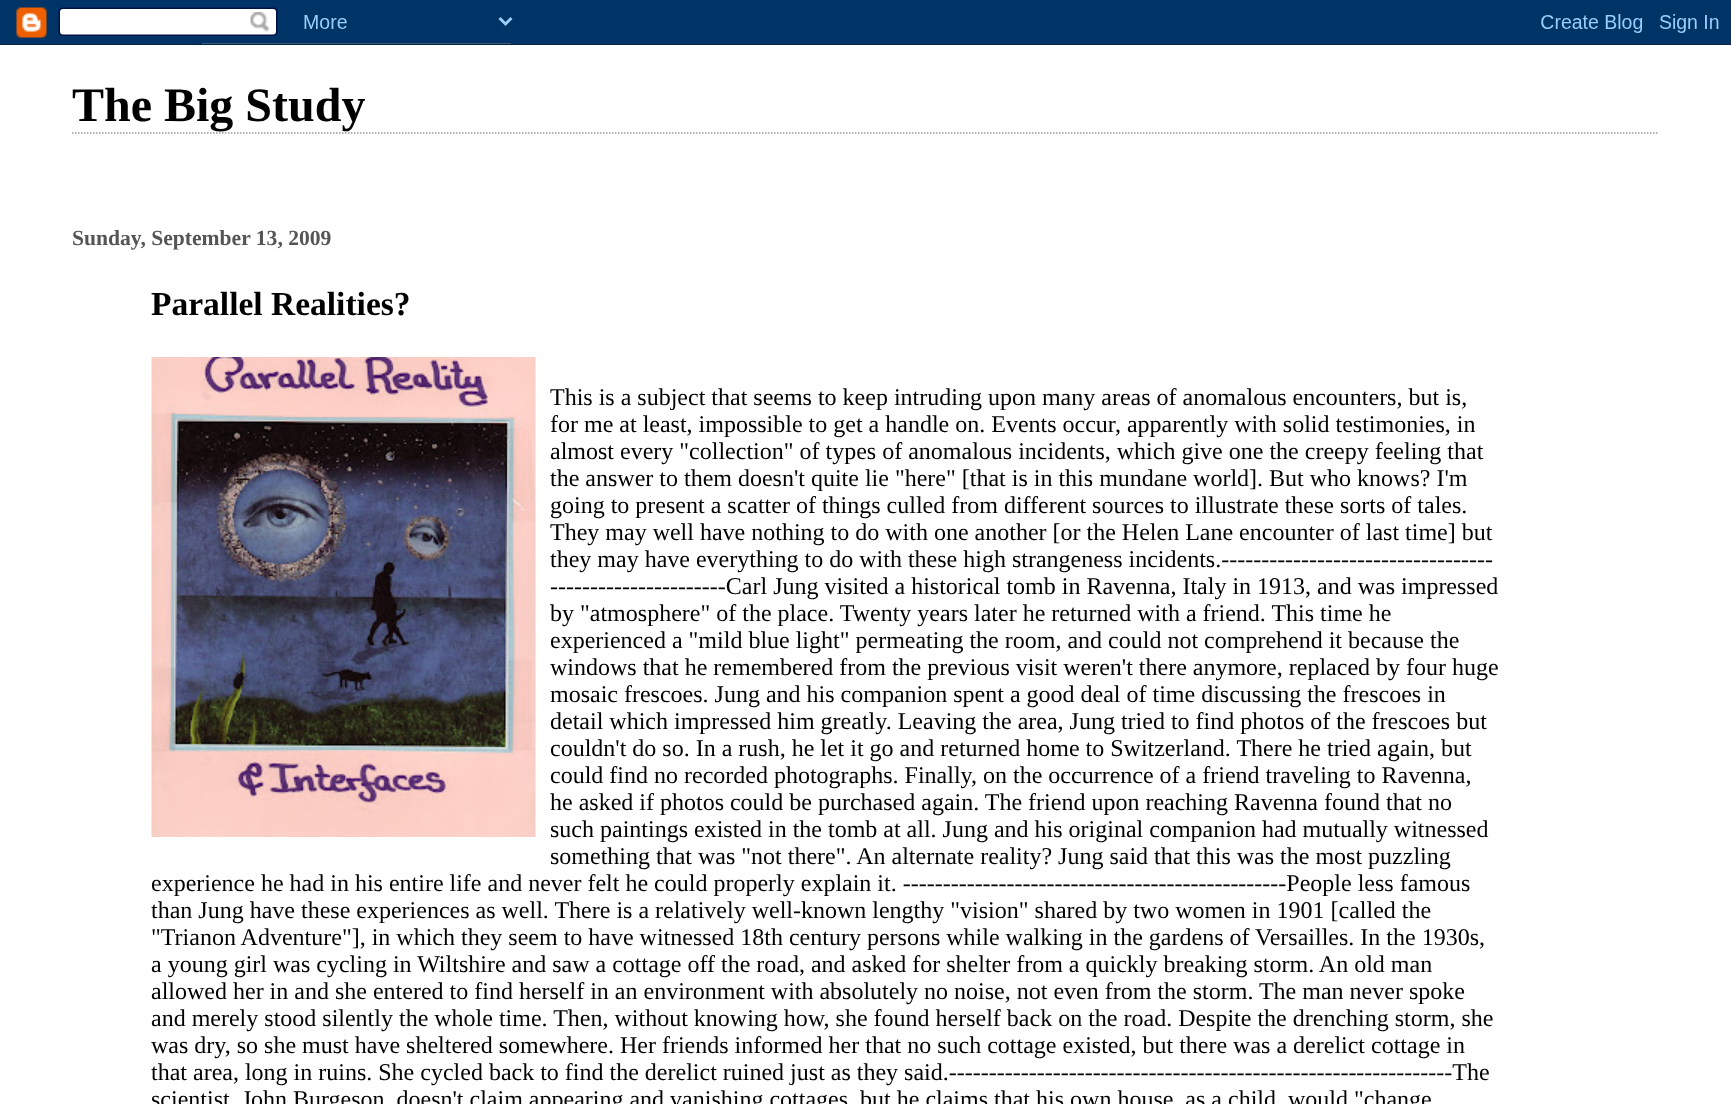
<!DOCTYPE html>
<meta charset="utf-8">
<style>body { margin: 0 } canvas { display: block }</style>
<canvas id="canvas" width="1731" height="1104"></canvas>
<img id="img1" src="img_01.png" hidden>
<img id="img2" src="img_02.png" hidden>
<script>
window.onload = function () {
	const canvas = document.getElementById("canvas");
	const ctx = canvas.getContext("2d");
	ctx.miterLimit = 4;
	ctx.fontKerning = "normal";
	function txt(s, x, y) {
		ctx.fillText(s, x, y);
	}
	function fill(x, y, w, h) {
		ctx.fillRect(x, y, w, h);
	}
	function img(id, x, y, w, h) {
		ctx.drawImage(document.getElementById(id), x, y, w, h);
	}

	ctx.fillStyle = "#FFFFFF";
	fill(0, 0, 1731, 1104);
	img("img1", 0, 0, 1731, 45);
	ctx.beginPath();
	ctx.moveTo(72, 133);
	ctx.lineTo(1659, 133);
	ctx.strokeStyle = "#999999";
	ctx.lineWidth = 1.5;
	ctx.setLineDash([1.5, 1.5]);
	ctx.stroke();
	img("img2", 151, 357, 385, 480);
	ctx.font = "bold 48px Liberation Serif";
	ctx.fillStyle = "#000000";
	txt("The Big Study", 72, 121);
	ctx.font = "bold 21.6px Liberation Serif";
	ctx.fillStyle = "#555555";
	txt("Sunday, September 13, 2009", 72, 245);
	ctx.font = "bold 33.5px Liberation Serif";
	ctx.fillStyle = "#000000";
	txt("Parallel Realities?", 151, 315);
	ctx.font = "24px Liberation Serif";
	txt("This is a subject that seems to keep intruding upon many areas of anomalous encounters, but is,", 550, 405);
	txt("for me at least, impossible to get a handle on. Events occur, apparently with solid testimonies, in", 550, 432);
	txt("almost every \"collection\" of types of anomalous incidents, which give one the creepy feeling that", 550, 459);
	txt("the answer to them doesn't quite lie \"here\" [that is in this mundane world]. But who knows? I'm", 550, 486);
	txt("going to present a scatter of things culled from different sources to illustrate these sorts of tales.", 550, 513);
	txt("They may well have nothing to do with one another [or the Helen Lane encounter of last time] but", 550, 540);
	txt("they may have everything to do with these high strangeness incidents.----------------------------------", 550, 567);
	txt("----------------------Carl Jung visited a historical tomb in Ravenna, Italy in 1913, and was impressed", 550, 594);
	txt("by \"atmosphere\" of the place. Twenty years later he returned with a friend. This time he", 550, 621);
	txt("experienced a \"mild blue light\" permeating the room, and could not comprehend it because the", 550, 648);
	txt("windows that he remembered from the previous visit weren't there anymore, replaced by four huge", 550, 675);
	txt("mosaic frescoes. Jung and his companion spent a good deal of time discussing the frescoes in", 550, 702);
	txt("detail which impressed him greatly. Leaving the area, Jung tried to find photos of the frescoes but", 550, 729);
	txt("couldn't do so. In a rush, he let it go and returned home to Switzerland. There he tried again, but", 550, 756);
	txt("could find no recorded photographs. Finally, on the occurrence of a friend traveling to Ravenna,", 550, 783);
	txt("he asked if photos could be purchased again. The friend upon reaching Ravenna found that no", 550, 810);
	txt("such paintings existed in the tomb at all. Jung and his original companion had mutually witnessed", 550, 837);
	txt("something that was \"not there\". An alternate reality? Jung said that this was the most puzzling", 550, 864);
	txt("experience he had in his entire life and never felt he could properly explain it. ------------------------------------------------People less famous", 151, 891);
	txt("than Jung have these experiences as well. There is a relatively well-known lengthy \"vision\" shared by two women in 1901 [called the", 151, 918);
	txt("\"Trianon Adventure\"], in which they seem to have witnessed 18th century persons while walking in the gardens of Versailles. In the 1930s,", 151, 945);
	txt("a young girl was cycling in Wiltshire and saw a cottage off the road, and asked for shelter from a quickly breaking storm. An old man", 151, 972);
	txt("allowed her in and she entered to find herself in an environment with absolutely no noise, not even from the storm. The man never spoke", 151, 999);
	txt("and merely stood silently the whole time. Then, without knowing how, she found herself back on the road. Despite the drenching storm, she", 151, 1026);
	txt("was dry, so she must have sheltered somewhere. Her friends informed her that no such cottage existed, but there was a derelict cottage in", 151, 1053);
	txt("that area, long in ruins. She cycled back to find the derelict ruined just as they said.---------------------------------------------------------------The", 151, 1080);
	txt("scientist, John Burgeson, doesn't claim appearing and vanishing cottages, but he claims that his own house, as a child, would \"change", 151, 1107);
};
</script>
